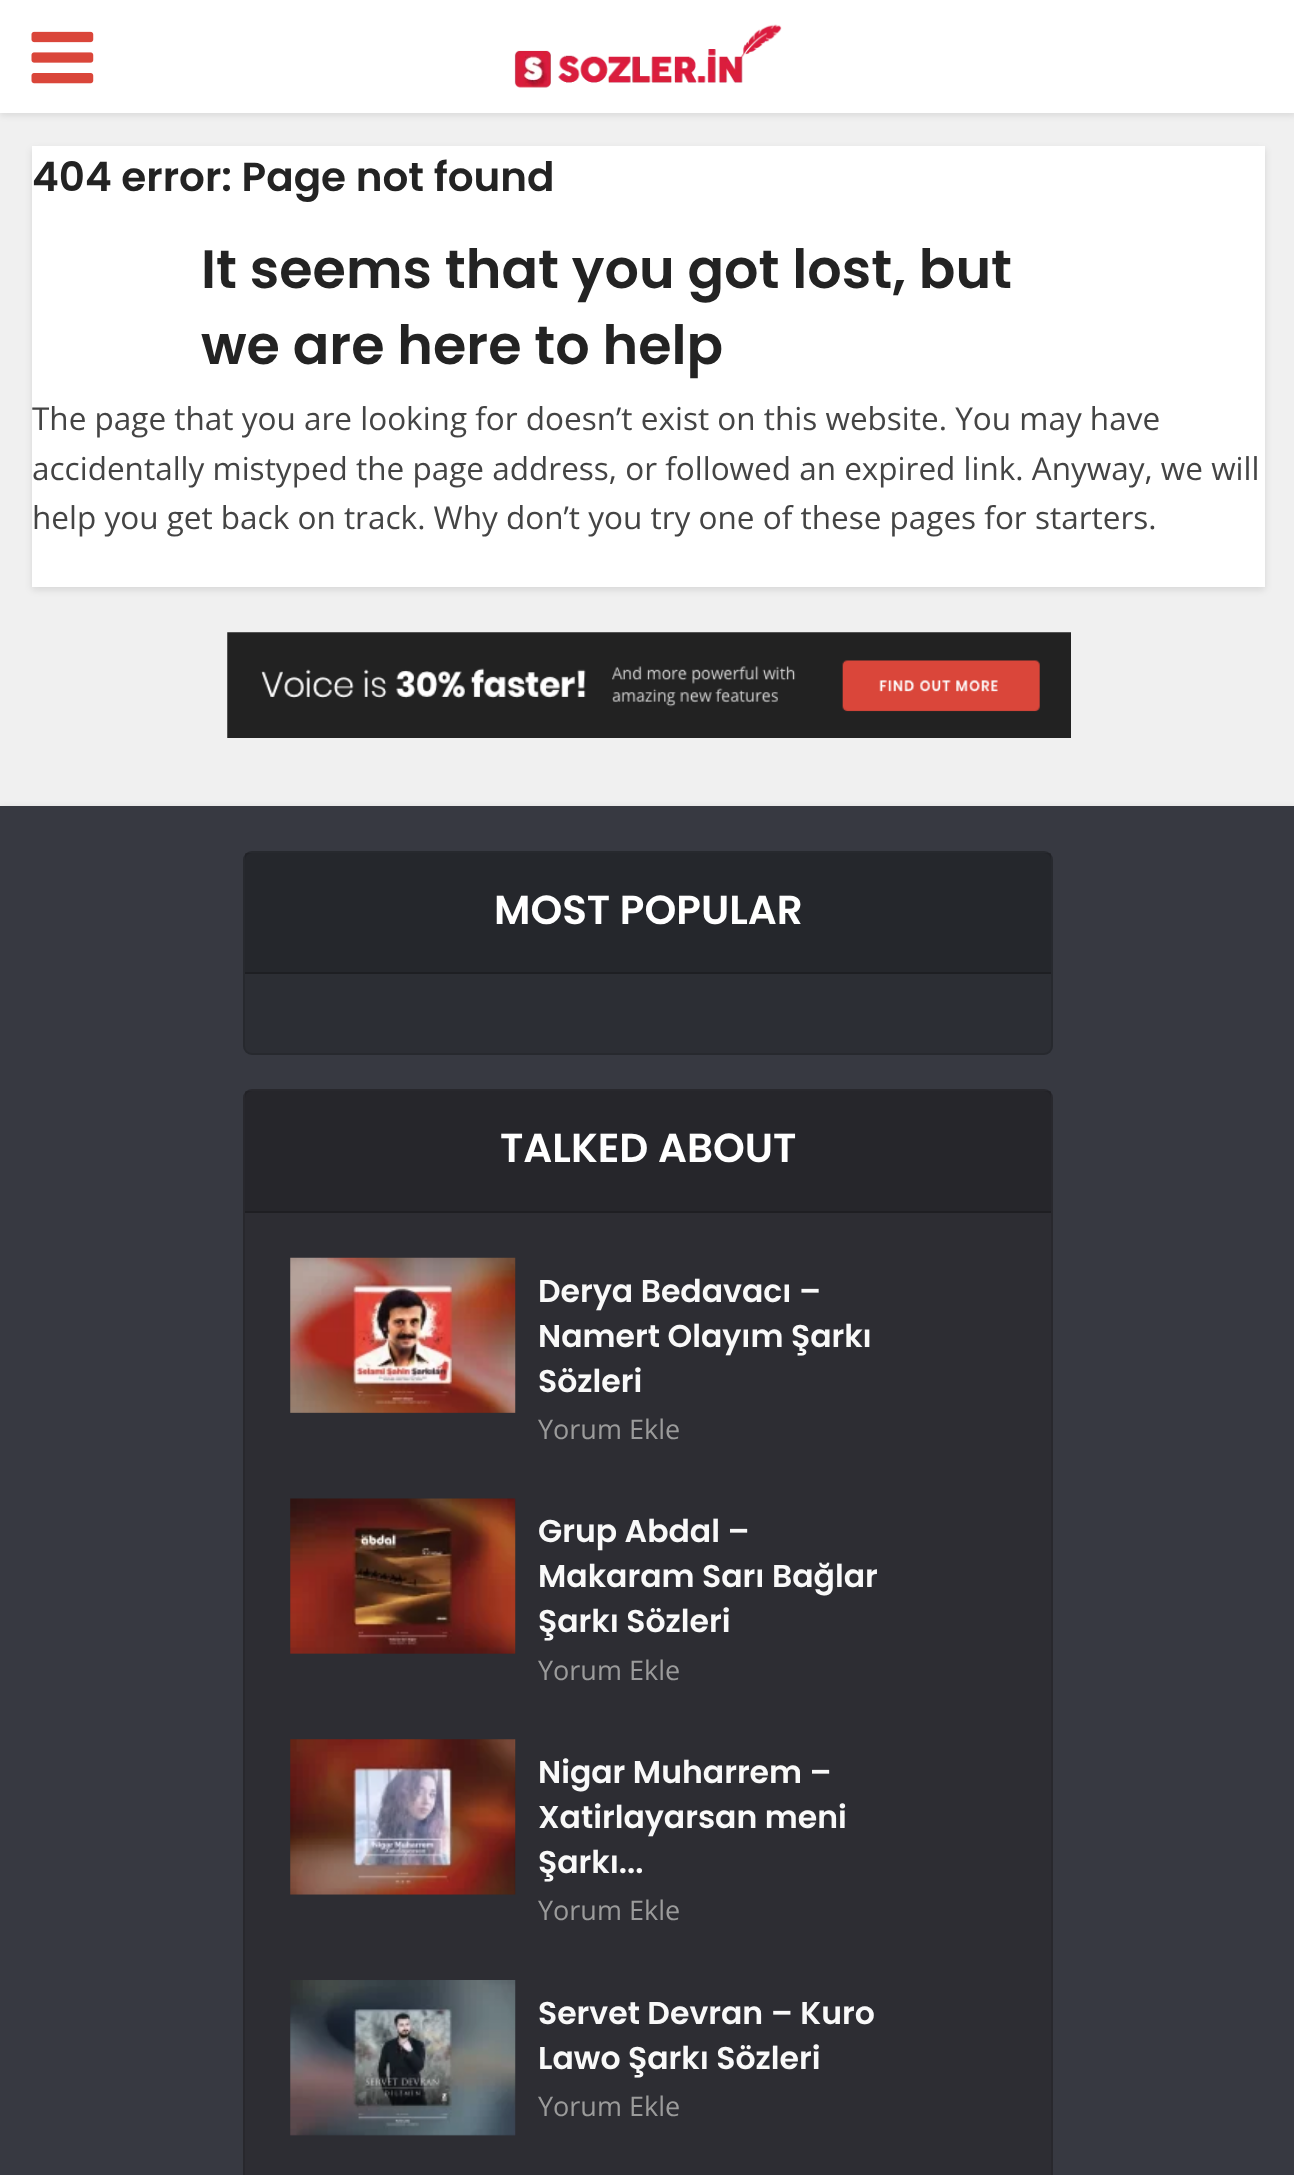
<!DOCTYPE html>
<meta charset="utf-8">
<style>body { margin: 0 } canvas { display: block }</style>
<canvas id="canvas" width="1294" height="2175"></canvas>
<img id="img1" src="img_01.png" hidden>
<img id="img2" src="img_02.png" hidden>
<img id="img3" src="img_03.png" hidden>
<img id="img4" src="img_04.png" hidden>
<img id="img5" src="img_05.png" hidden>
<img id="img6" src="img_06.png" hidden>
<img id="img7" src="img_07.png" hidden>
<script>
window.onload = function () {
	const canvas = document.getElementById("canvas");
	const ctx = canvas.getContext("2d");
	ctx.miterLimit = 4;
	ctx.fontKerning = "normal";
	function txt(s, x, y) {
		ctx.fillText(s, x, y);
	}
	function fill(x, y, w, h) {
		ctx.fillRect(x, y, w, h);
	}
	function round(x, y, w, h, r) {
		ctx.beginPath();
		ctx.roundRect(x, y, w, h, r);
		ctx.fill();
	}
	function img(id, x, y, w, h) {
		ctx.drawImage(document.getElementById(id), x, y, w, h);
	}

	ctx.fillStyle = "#F0F0F0";
	fill(0, 0, 1294, 2175);
	ctx.fillStyle = "rgba(0, 0, 0, 0.1)";
	ctx.filter = "blur(3.5px)";
	ctx.beginPath();
	ctx.rect(0, 2, 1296, 113);
	ctx.fill();
	ctx.filter = "none";
	ctx.fillStyle = "#FFFFFF";
	fill(0, 0, 1294, 113);
	img("img1", 31, 31, 63, 53);
	img("img2", 514, 24, 268, 64);
	ctx.fillStyle = "rgba(0, 0, 0, 0.1)";
	ctx.filter = "blur(3.5px)";
	ctx.beginPath();
	ctx.rect(32, 149, 1233, 441);
	ctx.fill();
	ctx.filter = "none";
	ctx.fillStyle = "#FFFFFF";
	fill(32, 146, 1233, 441);
	img("img3", 227, 632, 844, 106);
	ctx.fillStyle = "rgba(0, 0, 0, 0.2)";
	ctx.filter = "blur(4.5px)";
	ctx.beginPath();
	ctx.rect(0, 810, 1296, 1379);
	ctx.fill();
	ctx.filter = "none";
	ctx.fillStyle = "#373941";
	fill(0, 806, 1294, 1369);
	ctx.fillStyle = "#2C2E34";
	round(243, 851, 810, 204, 9);
	ctx.beginPath();
	ctx.roundRect(244, 852, 808, 202, 8);
	ctx.strokeStyle = "rgba(0, 0, 0, 0.1)";
	ctx.lineWidth = 2;
	ctx.stroke();
	ctx.fillStyle = "rgba(0, 0, 0, 0.15)";
	fill(245, 853, 806, 119);
	ctx.fillStyle = "#1E1F23";
	fill(245, 972, 806, 2);
	ctx.fillStyle = "#2D2D33";
	round(243, 1089, 810, 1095, 9);
	ctx.beginPath();
	ctx.roundRect(244, 1090, 808, 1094, 8);
	ctx.stroke();
	ctx.fillStyle = "rgba(0, 0, 0, 0.15)";
	fill(245, 1091, 806, 120);
	ctx.fillStyle = "#1F1F23";
	fill(245, 1211, 806, 2);
	img("img4", 290, 1257, 226, 156);
	img("img5", 290, 1498, 226, 156);
	img("img6", 290, 1739, 226, 156);
	img("img7", 290, 1980, 226, 156);
	ctx.font = "600 40.5px Poppins";
	ctx.fillStyle = "#232323";
	txt("404 error: Page not found", 32, 191);
	ctx.font = "600 54px Poppins";
	txt("It seems that you got lost, but", 201, 288);
	txt("we are here to help", 201, 364);
	ctx.font = "31.5px Open Sans";
	ctx.fillStyle = "#444444";
	txt("The page that you are looking for doesn’t exist on this website. You may have", 32, 430);
	txt("accidentally mistyped the page address, or followed an expired link. Anyway, we will", 32, 480);
	txt("help you get back on track. Why don’t you try one of these pages for starters.", 32, 529);
	ctx.font = "600 40.5px Poppins";
	ctx.fillStyle = "#FFFFFF";
	txt("MOST POPULAR", 494, 924);
	txt("TALKED ABOUT", 500, 1162);
	ctx.font = "600 31.5px Poppins";
	ctx.fillStyle = "#F9F9F9";
	txt("Derya Bedavacı –", 538, 1302);
	txt("Namert Olayım Şarkı", 538, 1347);
	txt("Sözleri", 538, 1392);
	ctx.font = "27px Open Sans";
	ctx.fillStyle = "#9B9B9B";
	txt("Yorum Ekle", 538, 1439);
	ctx.font = "600 31.5px Poppins";
	ctx.fillStyle = "#F9F9F9";
	txt("Grup Abdal –", 538, 1542);
	txt("Makaram Sarı Bağlar", 538, 1587);
	txt("Şarkı Sözleri", 538, 1632);
	ctx.font = "27px Open Sans";
	ctx.fillStyle = "#9B9B9B";
	txt("Yorum Ekle", 538, 1680);
	ctx.font = "600 31.5px Poppins";
	ctx.fillStyle = "#F9F9F9";
	txt("Nigar Muharrem –", 538, 1783);
	txt("Xatirlayarsan meni", 538, 1828);
	txt("Şarkı...", 538, 1873);
	ctx.font = "27px Open Sans";
	ctx.fillStyle = "#9B9B9B";
	txt("Yorum Ekle", 538, 1920);
	ctx.font = "600 31.5px Poppins";
	ctx.fillStyle = "#F9F9F9";
	txt("Servet Devran – Kuro", 538, 2024);
	txt("Lawo Şarkı Sözleri", 538, 2069);
	ctx.font = "27px Open Sans";
	ctx.fillStyle = "#9B9B9B";
	txt("Yorum Ekle", 538, 2116);
};
</script>
